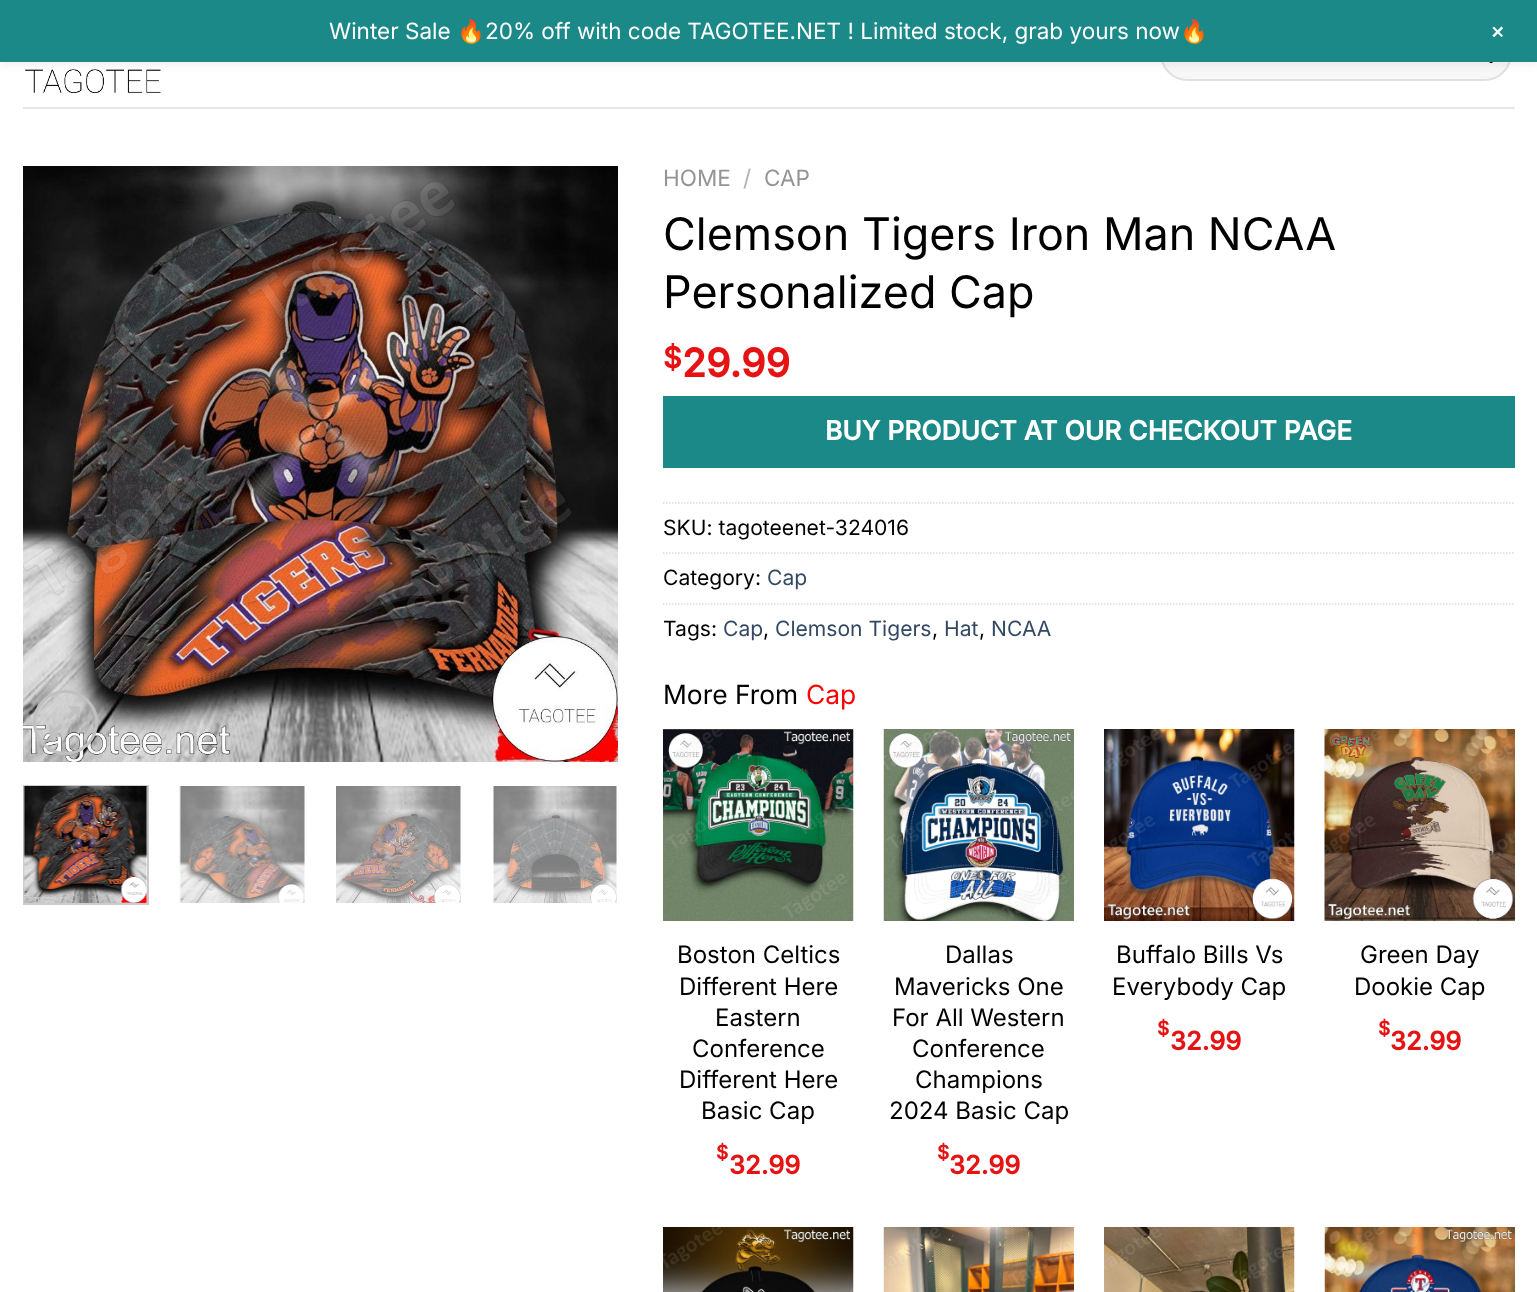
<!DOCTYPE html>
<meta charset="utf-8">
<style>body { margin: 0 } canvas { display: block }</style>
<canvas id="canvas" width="1537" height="1292"></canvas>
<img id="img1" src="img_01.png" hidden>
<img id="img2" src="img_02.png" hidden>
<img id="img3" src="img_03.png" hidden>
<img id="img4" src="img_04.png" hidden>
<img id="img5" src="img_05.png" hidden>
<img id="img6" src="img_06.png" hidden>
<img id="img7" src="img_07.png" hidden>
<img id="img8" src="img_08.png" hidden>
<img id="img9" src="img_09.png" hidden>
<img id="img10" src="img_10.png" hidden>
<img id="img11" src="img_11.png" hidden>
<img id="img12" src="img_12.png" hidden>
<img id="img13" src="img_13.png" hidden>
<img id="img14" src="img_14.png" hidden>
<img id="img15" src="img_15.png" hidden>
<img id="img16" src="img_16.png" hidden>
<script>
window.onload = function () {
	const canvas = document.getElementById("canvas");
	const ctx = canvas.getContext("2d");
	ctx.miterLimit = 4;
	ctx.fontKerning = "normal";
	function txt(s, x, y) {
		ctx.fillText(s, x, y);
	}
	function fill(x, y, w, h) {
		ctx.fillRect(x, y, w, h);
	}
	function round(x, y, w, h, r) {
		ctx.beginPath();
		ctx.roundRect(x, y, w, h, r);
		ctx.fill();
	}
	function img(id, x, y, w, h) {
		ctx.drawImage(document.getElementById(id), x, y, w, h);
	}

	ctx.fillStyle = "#FFFFFF";
	fill(0, 0, 1537, 1292);
	img("img1", 25, 69, 136, 24);
	ctx.fillStyle = "#F7F7F7";
	round(1160, 26, 352, 55, 27.5);
	ctx.beginPath();
	ctx.roundRect(1161, 27, 350, 53, 26.5);
	ctx.strokeStyle = "rgba(0, 0, 0, 0.09)";
	ctx.lineWidth = 2;
	ctx.stroke();
	img("img2", 1489, 62, 4, 2);
	ctx.fillStyle = "rgba(0, 0, 0, 0.05)";
	ctx.filter = "blur(3px)";
	ctx.beginPath();
	ctx.rect(0, 5, 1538, 61);
	ctx.fill();
	ctx.filter = "none";
	ctx.fillStyle = "#1A8987";
	fill(0, 0, 1537, 62);
	ctx.fillStyle = "#E6E6E6";
	fill(23, 107, 1492, 2);
	img("img3", 23, 166, 595, 596);
	ctx.beginPath();
	ctx.arc(65.5, 722.5, 31, 0, Math.PI * 2);
	ctx.strokeStyle = "#C0C0C0";
	ctx.lineWidth = 3;
	ctx.stroke();
	img("img4", 49, 706, 32, 31);
	ctx.strokeStyle = "#CCCCCC";
	ctx.lineWidth = 2;
	ctx.strokeRect(24, 786, 124, 118);
	img("img5", 23, 786, 125, 117);
	img("img6", 179, 786, 126, 117);
	img("img7", 336, 786, 125, 117);
	img("img8", 493, 786, 124, 117);
	ctx.fillStyle = "#1A8987";
	fill(663, 396, 852, 72);
	ctx.beginPath();
	ctx.moveTo(663, 503);
	ctx.lineTo(1515, 503);
	ctx.strokeStyle = "#DDDDDD";
	ctx.lineWidth = 1.5;
	ctx.setLineDash([1.5, 1.5]);
	ctx.stroke();
	ctx.beginPath();
	ctx.moveTo(663, 553);
	ctx.lineTo(1515, 553);
	ctx.stroke();
	ctx.beginPath();
	ctx.moveTo(663, 604);
	ctx.lineTo(1515, 604);
	ctx.stroke();
	img("img9", 663, 729, 191, 192);
	img("img10", 883, 729, 191, 192);
	img("img11", 1104, 729, 191, 192);
	img("img12", 1324, 729, 191, 192);
	img("img13", 663, 1227, 191, 65);
	img("img14", 883, 1227, 191, 65);
	img("img15", 1104, 1227, 191, 65);
	img("img16", 1324, 1227, 191, 65);
	ctx.font = "22.5px Inter";
	ctx.fillStyle = "#FFFFFF";
	txt("Winter Sale", 329, 39);
	ctx.font = "22.5px Noto Color Emoji";
	txt("🔥", 457, 39);
	ctx.font = "22.5px Inter";
	txt("20% off with code TAGOTEE.NET ! Limited stock, grab yours now", 485, 39);
	ctx.font = "22.5px Noto Color Emoji";
	txt("🔥", 1180, 39);
	ctx.font = "27px Inter";
	ctx.save();
	ctx.translate(1486, 31);
	ctx.rotate(45 * Math.PI / 180);
	ctx.fillText("+", 0, 0);
	ctx.restore();
	ctx.font = "22.5px Inter";
	ctx.fillStyle = "#949494";
	txt("HOME", 663, 186);
	ctx.fillStyle = "#B2B2B2";
	txt("/", 743, 186);
	ctx.fillStyle = "#949494";
	txt("CAP", 764, 186);
	ctx.font = "44.9px Inter";
	ctx.fillStyle = "#000000";
	txt("Clemson Tigers Iron Man NCAA", 663, 250);
	txt("Personalized Cap", 663, 308);
	ctx.font = "bold 29px Inter";
	ctx.fillStyle = "#E51313";
	txt("$", 663, 368);
	ctx.font = "bold 39px Inter";
	txt("29.99", 682, 377);
	ctx.font = "bold 26.4px Inter";
	ctx.fillStyle = "#FFFFFF";
	txt("BUY PRODUCT AT OUR CHECKOUT PAGE", 825, 440);
	ctx.font = "21.1px Inter";
	ctx.fillStyle = "#000000";
	txt("SKU: tagoteenet-324016", 663, 535);
	txt("Category:", 663, 585);
	ctx.fillStyle = "#334862";
	txt("Cap", 767, 585);
	ctx.fillStyle = "#000000";
	txt("Tags:", 663, 636);
	ctx.fillStyle = "#334862";
	txt("Cap", 723, 636);
	ctx.fillStyle = "#000000";
	txt(",", 763, 636);
	ctx.fillStyle = "#334862";
	txt("Clemson Tigers", 775, 636);
	ctx.fillStyle = "#000000";
	txt(",", 932, 636);
	ctx.fillStyle = "#334862";
	txt("Hat", 944, 636);
	ctx.fillStyle = "#000000";
	txt(",", 979, 636);
	ctx.fillStyle = "#334862";
	txt("NCAA", 991, 636);
	ctx.font = "26.4px Inter";
	ctx.fillStyle = "#000000";
	txt("More From", 663, 704);
	ctx.fillStyle = "#FF0000";
	txt("Cap", 806, 704);
	ctx.font = "24px Inter";
	ctx.fillStyle = "#000000";
	txt("Boston Celtics", 677, 963);
	txt("Different Here", 679, 995);
	txt("Eastern", 715, 1026);
	txt("Conference", 692, 1057);
	txt("Different Here", 679, 1088);
	txt("Basic Cap", 701, 1119);
	ctx.font = "bold 19px Inter";
	ctx.fillStyle = "#E51313";
	txt("$", 716, 1159);
	ctx.font = "bold 25.5px Inter";
	txt("32.99", 729, 1174);
	ctx.font = "24px Inter";
	ctx.fillStyle = "#000000";
	txt("Dallas", 945, 963);
	txt("Mavericks One", 894, 995);
	txt("For All Western", 892, 1026);
	txt("Conference", 912, 1057);
	txt("Champions", 915, 1088);
	txt("2024 Basic Cap", 889, 1119);
	ctx.font = "bold 19px Inter";
	ctx.fillStyle = "#E51313";
	txt("$", 937, 1159);
	ctx.font = "bold 25.5px Inter";
	txt("32.99", 949, 1174);
	ctx.font = "24px Inter";
	ctx.fillStyle = "#000000";
	txt("Buffalo Bills Vs", 1116, 963);
	txt("Everybody Cap", 1112, 995);
	ctx.font = "bold 19px Inter";
	ctx.fillStyle = "#E51313";
	txt("$", 1157, 1035);
	ctx.font = "bold 25.5px Inter";
	txt("32.99", 1170, 1050);
	ctx.font = "24px Inter";
	ctx.fillStyle = "#000000";
	txt("Green Day", 1360, 963);
	txt("Dookie Cap", 1354, 995);
	ctx.font = "bold 19px Inter";
	ctx.fillStyle = "#E51313";
	txt("$", 1378, 1035);
	ctx.font = "bold 25.5px Inter";
	txt("32.99", 1390, 1050);
};
</script>
